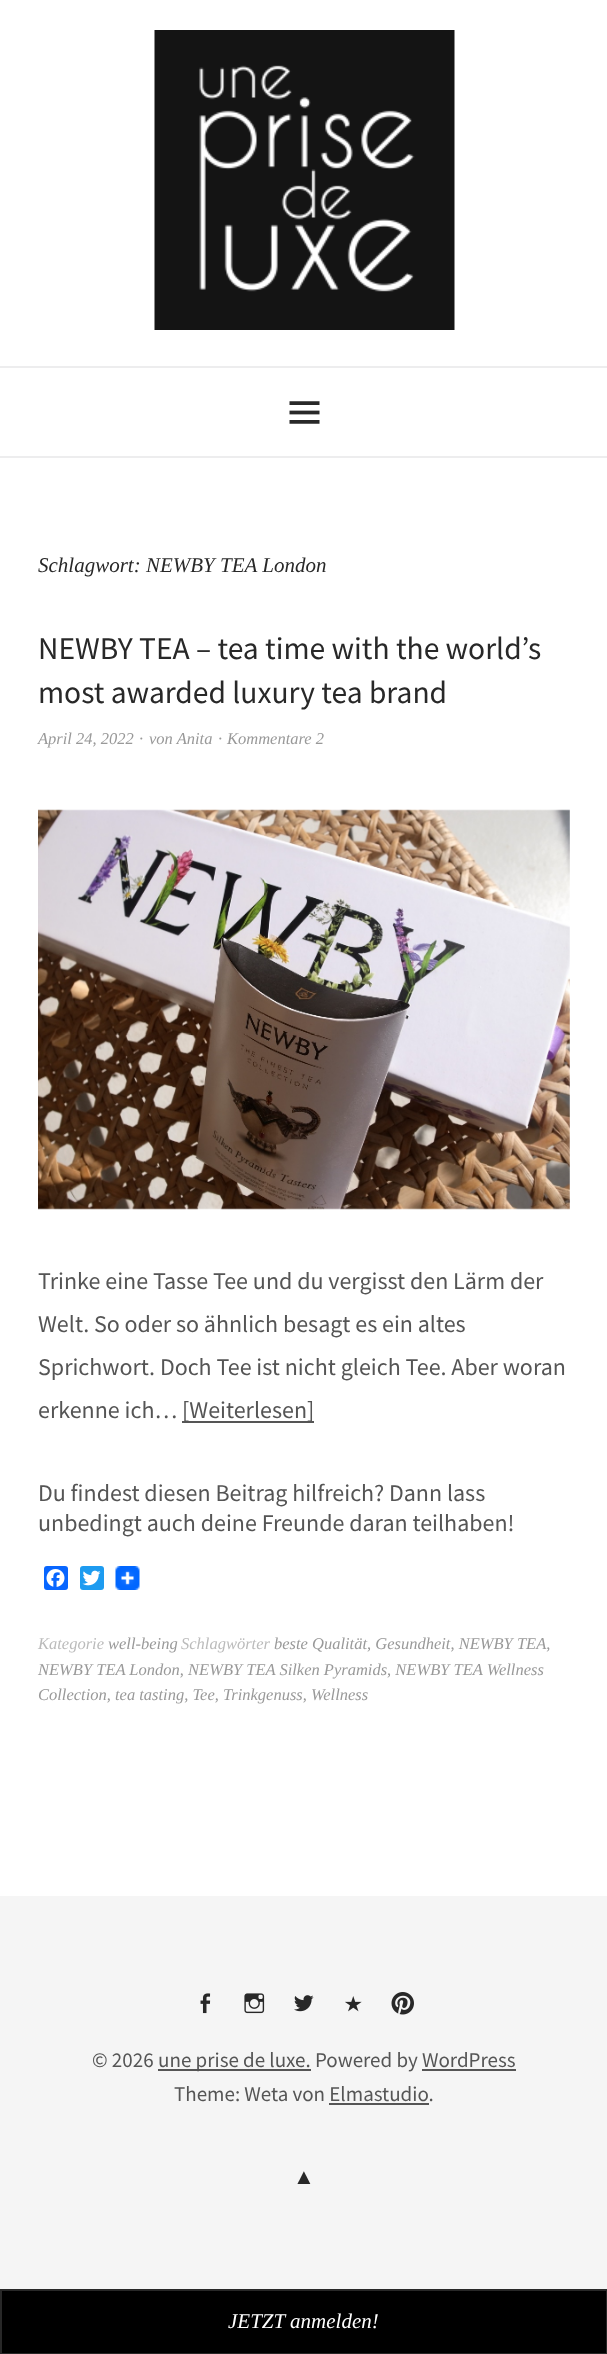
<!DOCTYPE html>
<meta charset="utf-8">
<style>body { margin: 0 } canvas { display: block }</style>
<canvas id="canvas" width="607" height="2354"></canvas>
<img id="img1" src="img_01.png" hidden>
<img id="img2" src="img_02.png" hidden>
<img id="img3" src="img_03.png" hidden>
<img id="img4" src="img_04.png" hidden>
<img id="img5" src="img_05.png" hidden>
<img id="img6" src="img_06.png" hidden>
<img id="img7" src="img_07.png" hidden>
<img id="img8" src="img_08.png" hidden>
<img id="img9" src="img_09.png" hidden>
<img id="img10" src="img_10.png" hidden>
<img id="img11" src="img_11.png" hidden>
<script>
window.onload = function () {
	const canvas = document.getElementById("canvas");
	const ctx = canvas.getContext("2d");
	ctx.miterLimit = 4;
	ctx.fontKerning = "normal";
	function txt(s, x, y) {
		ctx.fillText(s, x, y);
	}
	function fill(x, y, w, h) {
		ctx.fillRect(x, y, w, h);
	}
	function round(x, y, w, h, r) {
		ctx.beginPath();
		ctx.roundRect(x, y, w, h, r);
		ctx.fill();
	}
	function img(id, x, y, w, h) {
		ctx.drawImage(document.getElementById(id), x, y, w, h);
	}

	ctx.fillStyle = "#FFFFFF";
	fill(0, 0, 607, 2354);
	ctx.fillStyle = "#EDEDEE";
	fill(0, 366, 607, 2);
	img("img1", 154, 30, 301, 300);
	fill(0, 456, 607, 2);
	img("img2", 289, 401, 31, 23);
	img("img3", 38, 809, 532, 401);
	ctx.fillStyle = "#555555";
	fill(182, 1421, 132, 2);
	ctx.fillStyle = "#0866FF";
	round(44, 1566, 24, 24, 3);
	img("img4", 46, 1569, 19, 18);
	ctx.fillStyle = "#1D9BF0";
	round(80, 1566, 24, 24, 3);
	img("img5", 82, 1570, 19, 16);
	img("img6", 115, 1566, 25, 24);
	ctx.fillStyle = "#F5F5F5";
	fill(0, 1896, 607, 393);
	img("img7", 200, 1993, 11, 21);
	img("img8", 244, 1993, 21, 21);
	img("img9", 294, 1995, 20, 17);
	img("img10", 345, 1996, 17, 16);
	img("img11", 391, 1992, 23, 23);
	ctx.fillStyle = "#555555";
	fill(158, 2069, 153, 2);
	fill(422, 2069, 94, 2);
	fill(329, 2103, 100, 2);
	ctx.fillStyle = "#000000";
	ctx.beginPath();
	ctx.rect(1, 2290, 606, 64);
	ctx.fill();
	ctx.strokeStyle = "#282828";
	ctx.lineWidth = 2;
	ctx.stroke();
	ctx.font = "italic 21px Liberation Serif";
	ctx.fillStyle = "#282828";
	txt("Schlagwort: NEWBY TEA London", 38, 572);
	ctx.font = "31.5px Source Sans Pro";
	txt("NEWBY TEA – tea time with the world’s", 38, 659);
	txt("most awarded luxury tea brand", 38, 703);
	ctx.font = "italic 16.5px Liberation Serif";
	ctx.fillStyle = "#999999";
	txt("April 24, 2022", 38, 744);
	txt("∙", 139, 744);
	txt("von Anita", 149, 744);
	txt("∙", 218, 744);
	txt("Kommentare 2", 227, 744);
	ctx.font = "24px Source Sans Pro";
	ctx.fillStyle = "#555555";
	txt("Trinke eine Tasse Tee und du vergisst den Lärm der", 38, 1289);
	txt("Welt. So oder so ähnlich besagt es ein altes", 38, 1332);
	txt("Sprichwort. Doch Tee ist nicht gleich Tee. Aber woran", 38, 1375);
	txt("erkenne ich…", 38, 1418);
	txt("[Weiterlesen]", 182, 1418);
	txt("Du findest diesen Beitrag hilfreich? Dann lass", 38, 1501);
	txt("unbedingt auch deine Freunde daran teilhaben!", 38, 1531);
	ctx.font = "italic 16.5px Liberation Serif";
	ctx.fillStyle = "#BBBBBB";
	txt("Kategorie", 38, 1649);
	ctx.fillStyle = "#999999";
	txt("well-being", 108, 1649);
	ctx.fillStyle = "#BBBBBB";
	txt("Schlagwörter", 181, 1649);
	ctx.fillStyle = "#999999";
	txt("beste Qualität, Gesundheit, NEWBY TEA,", 274, 1649);
	txt("NEWBY TEA London, NEWBY TEA Silken Pyramids, NEWBY TEA Wellness", 38, 1675);
	txt("Collection, tea tasting, Tee, Trinkgenuss, Wellness", 38, 1700);
	ctx.font = "21px Source Sans Pro";
	ctx.fillStyle = "#555555";
	txt("© 2026", 92, 2067);
	txt("une prise de luxe. Powered by WordPress", 158, 2067);
	txt("Theme: Weta von Elmastudio.", 174, 2101);
	ctx.font = "22px Liberation Sans";
	ctx.fillStyle = "#282828";
	txt("▲", 293, 2184);
	ctx.font = "italic 21px Liberation Serif";
	ctx.fillStyle = "#FFFFFF";
	txt("JETZT anmelden!", 228, 2328);
};
</script>
